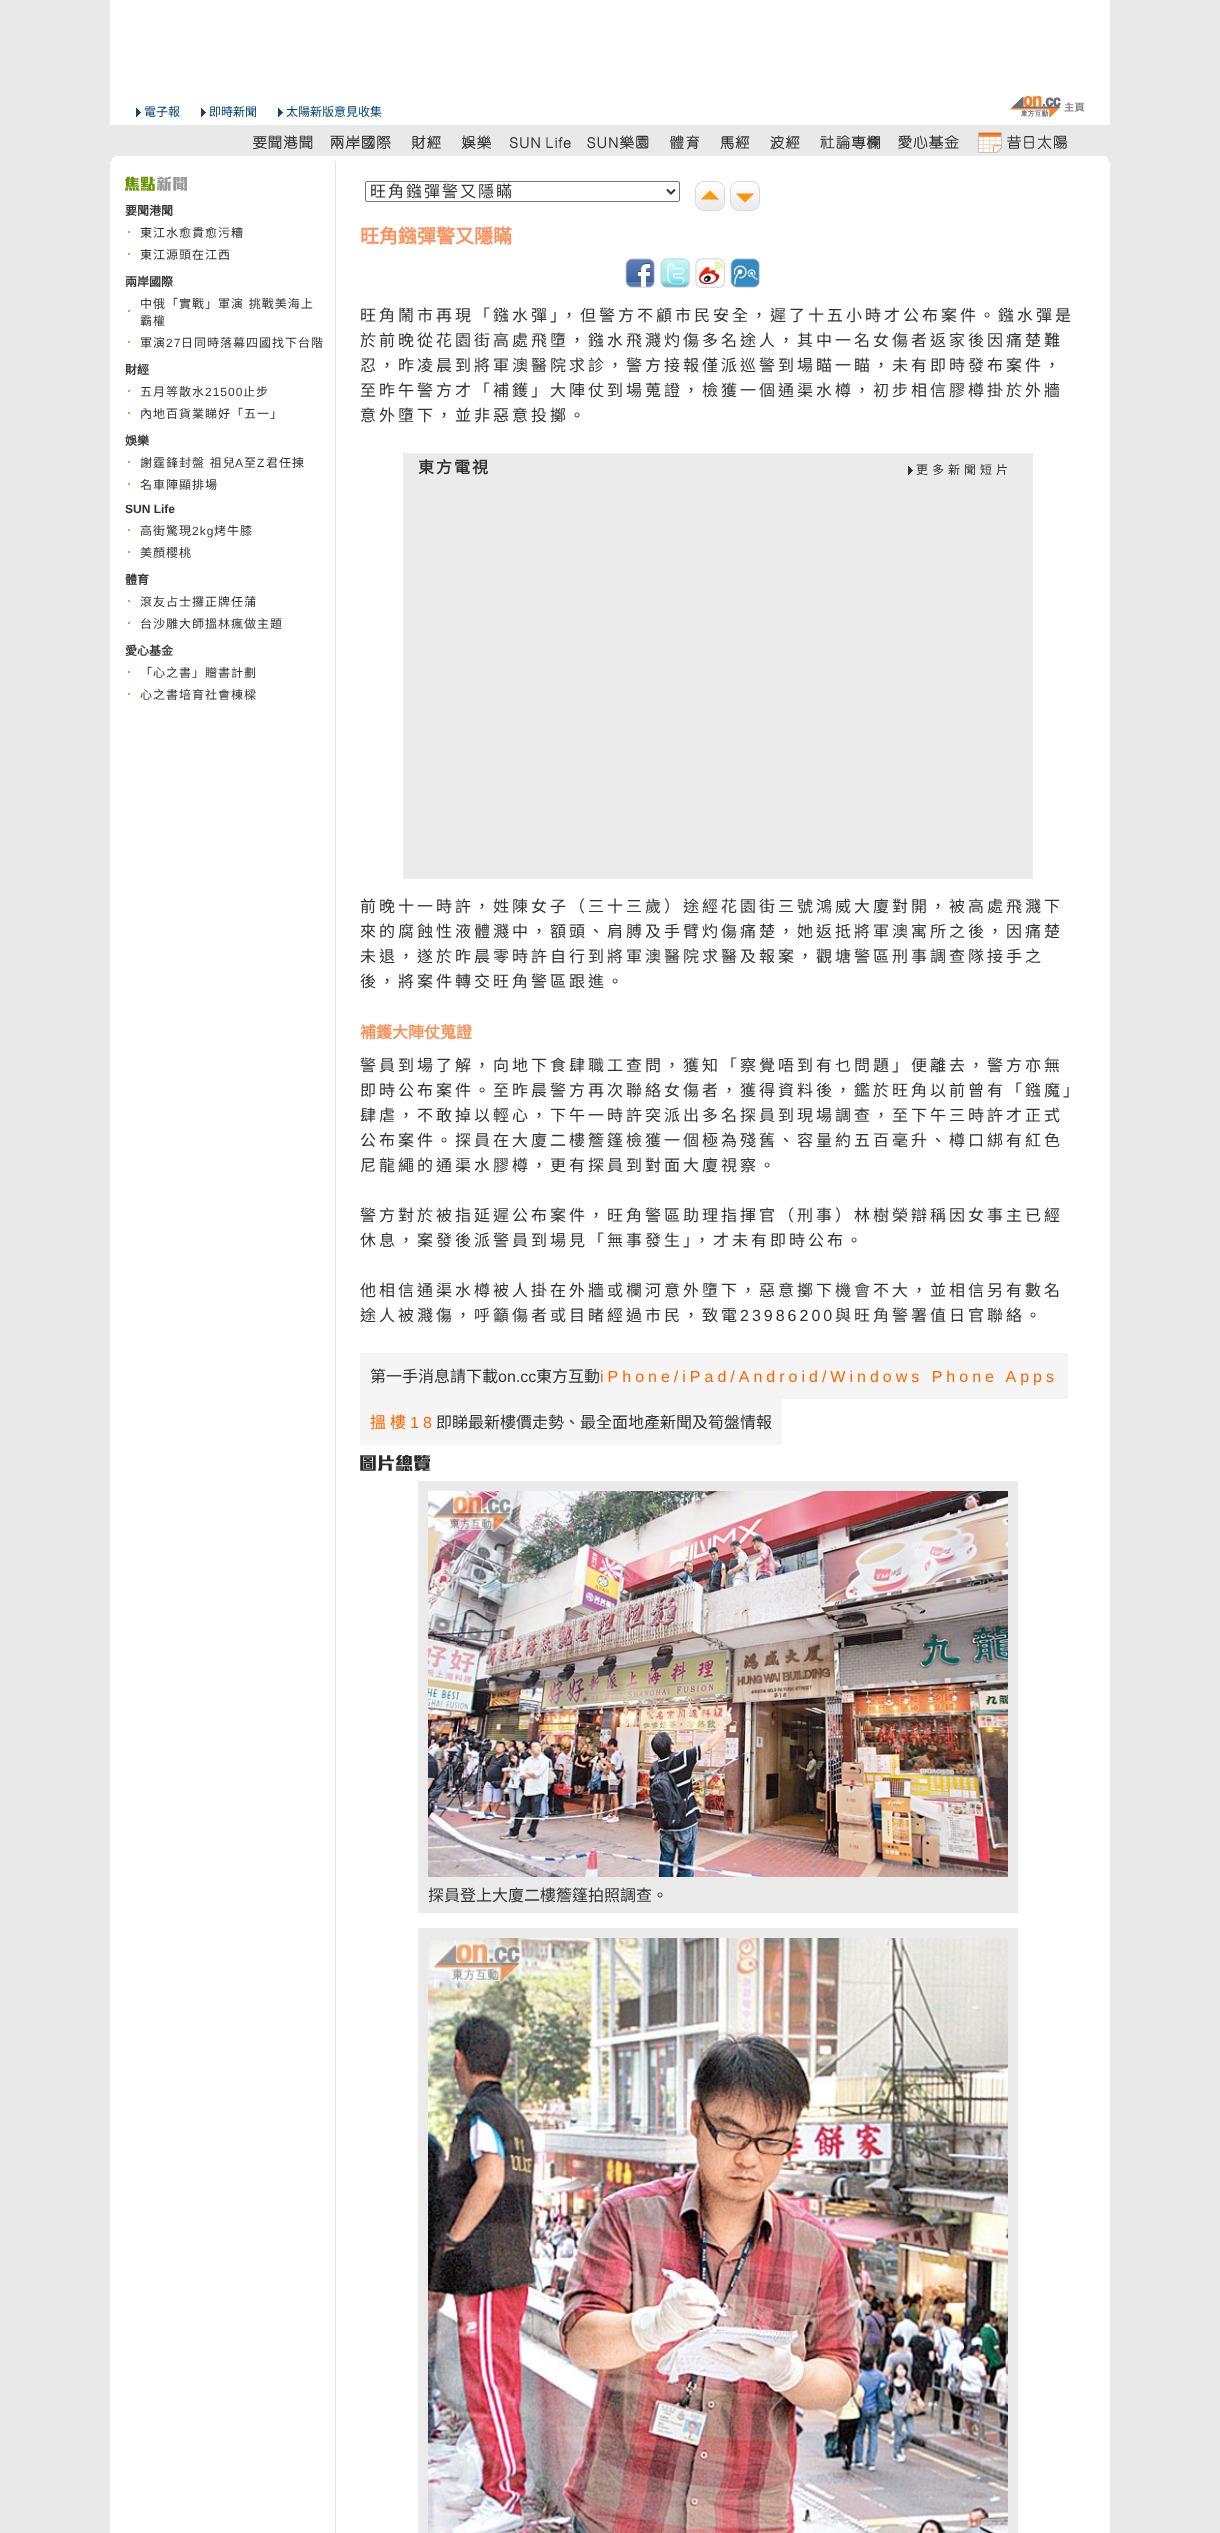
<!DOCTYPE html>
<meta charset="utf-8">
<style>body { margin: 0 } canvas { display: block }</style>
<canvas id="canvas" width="1220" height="2533"></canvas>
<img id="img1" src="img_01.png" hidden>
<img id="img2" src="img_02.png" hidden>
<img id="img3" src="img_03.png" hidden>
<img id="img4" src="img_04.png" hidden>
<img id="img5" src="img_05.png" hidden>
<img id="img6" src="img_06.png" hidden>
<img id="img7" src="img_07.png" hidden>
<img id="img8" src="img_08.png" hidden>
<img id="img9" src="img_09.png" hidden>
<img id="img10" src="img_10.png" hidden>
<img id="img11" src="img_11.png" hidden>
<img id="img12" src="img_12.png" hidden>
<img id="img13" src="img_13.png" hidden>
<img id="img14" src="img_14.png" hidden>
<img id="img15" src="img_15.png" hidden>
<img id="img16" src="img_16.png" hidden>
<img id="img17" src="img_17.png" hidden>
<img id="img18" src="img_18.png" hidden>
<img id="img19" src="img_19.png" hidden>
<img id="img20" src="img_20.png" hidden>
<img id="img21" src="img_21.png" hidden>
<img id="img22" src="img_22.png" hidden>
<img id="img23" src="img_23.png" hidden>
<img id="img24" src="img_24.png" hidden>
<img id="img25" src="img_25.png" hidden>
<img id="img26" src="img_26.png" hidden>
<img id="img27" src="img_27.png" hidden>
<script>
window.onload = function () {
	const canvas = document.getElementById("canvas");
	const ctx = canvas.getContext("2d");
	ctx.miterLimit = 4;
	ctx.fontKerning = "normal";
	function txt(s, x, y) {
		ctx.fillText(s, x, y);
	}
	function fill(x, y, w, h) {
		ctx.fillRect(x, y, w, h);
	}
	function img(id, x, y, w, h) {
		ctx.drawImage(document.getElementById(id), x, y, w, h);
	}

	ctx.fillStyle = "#E9E9E9";
	fill(0, 0, 1220, 2533);
	ctx.fillStyle = "#FFFFFF";
	fill(110, 0, 1000, 125);
	img("img1", 136, 108, 5, 9);
	img("img1", 201, 108, 5, 9);
	img("img1", 278, 108, 5, 9);
	img("img2", 1010, 96, 75, 22);
	img("img3", 253, 135, 60, 15);
	img("img4", 330, 135, 61, 15);
	img("img5", 412, 135, 29, 15);
	img("img6", 461, 135, 30, 15);
	img("img7", 510, 137, 61, 12);
	img("img8", 587, 135, 62, 15);
	img("img9", 670, 135, 30, 15);
	img("img10", 720, 135, 30, 15);
	img("img11", 770, 135, 30, 15);
	img("img12", 820, 135, 60, 15);
	img("img13", 898, 135, 61, 14);
	img("img14", 978, 132, 90, 21);
	img("img15", 110, 156, 960, 5);
	img("img16", 1070, 156, 40, 5);
	fill(110, 161, 1000, 2372);
	ctx.fillStyle = "#E5E5E5";
	fill(335, 161, 1, 2372);
	img("img17", 125, 176, 62, 15);
	ctx.fillStyle = "#FF8E58";
	fill(128, 231, 2, 2);
	fill(128, 253, 2, 2);
	fill(128, 310, 2, 2);
	fill(128, 341, 2, 2);
	fill(128, 390, 2, 2);
	fill(128, 412, 2, 2);
	fill(128, 461, 2, 2);
	fill(128, 483, 2, 2);
	fill(128, 529, 2, 2);
	fill(128, 551, 2, 2);
	fill(128, 600, 2, 2);
	fill(128, 622, 2, 2);
	fill(128, 671, 2, 2);
	fill(128, 693, 2, 2);
	ctx.beginPath();
	ctx.roundRect(365.5, 181.5, 314, 20, 1.5);
	ctx.strokeStyle = "#767676";
	ctx.stroke();
	ctx.beginPath();
	ctx.moveTo(667, 189.5);
	ctx.lineTo(671, 193.5);
	ctx.lineTo(675, 189.5);
	ctx.strokeStyle = "#333333";
	ctx.lineWidth = 2;
	ctx.stroke();
	img("img18", 695, 181, 30, 30);
	img("img19", 730, 181, 30, 30);
	img("img20", 625, 258, 30, 30);
	img("img21", 660, 258, 30, 30);
	img("img22", 695, 258, 30, 30);
	img("img23", 730, 258, 30, 30);
	ctx.fillStyle = "#EBEBEB";
	fill(403, 453, 630, 426);
	img("img24", 908, 466, 5, 9);
	ctx.fillStyle = "#F5F5F5";
	fill(360, 1353, 708, 46);
	fill(360, 1399, 422, 46);
	img("img25", 360, 1455, 71, 16);
	ctx.fillStyle = "#EBEBEB";
	fill(418, 1481, 600, 432);
	img("img26", 428, 1491, 580, 386);
	fill(418, 1928, 600, 605);
	img("img27", 428, 1938, 580, 595);
	ctx.font = "12px Noto Sans CJK HK";
	ctx.fillStyle = "#004276";
	txt("電子報", 144, 116);
	txt("即時新聞", 209, 116);
	txt("太陽新版意見收集", 286, 116);
	ctx.font = "bold 12px Noto Sans CJK HK";
	ctx.fillStyle = "#333333";
	txt("要聞港聞", 125, 215);
	ctx.letterSpacing = "1px";
	ctx.font = "12px Noto Sans CJK HK";
	txt("東江水愈貴愈污糟", 140, 237);
	txt("東江源頭在江西", 140, 259);
	ctx.letterSpacing = "0px";
	ctx.font = "bold 12px Noto Sans CJK HK";
	txt("兩岸國際", 125, 286);
	ctx.letterSpacing = "1px";
	ctx.wordSpacing = "1px";
	ctx.font = "12px Noto Sans CJK HK";
	txt("中俄「實戰」軍演 挑戰美海上", 140, 308);
	ctx.wordSpacing = "0px";
	txt("霸權", 140, 325);
	txt("軍演", 140, 347);
	ctx.font = "12px Liberation Sans";
	txt("27", 166, 347);
	ctx.font = "12px Noto Sans CJK HK";
	txt("日同時落幕四國找下台階", 181, 347);
	ctx.letterSpacing = "0px";
	ctx.font = "bold 12px Noto Sans CJK HK";
	txt("財經", 125, 374);
	ctx.letterSpacing = "1px";
	ctx.font = "12px Noto Sans CJK HK";
	txt("五月等散水", 140, 396);
	ctx.font = "12px Liberation Sans";
	txt("21500", 205, 396);
	ctx.font = "12px Noto Sans CJK HK";
	txt("止步", 243, 396);
	txt("內地百貨業睇好「五一」", 140, 418);
	ctx.letterSpacing = "0px";
	ctx.font = "bold 12px Noto Sans CJK HK";
	txt("娛樂", 125, 445);
	ctx.letterSpacing = "1px";
	ctx.wordSpacing = "1px";
	ctx.font = "12px Noto Sans CJK HK";
	txt("謝霆鋒封盤 祖兒", 140, 467);
	ctx.wordSpacing = "0px";
	ctx.font = "12px Liberation Sans";
	txt("A", 235, 467);
	ctx.font = "12px Noto Sans CJK HK";
	txt("至", 244, 467);
	ctx.font = "12px Liberation Sans";
	txt("Z", 257, 467);
	ctx.font = "12px Noto Sans CJK HK";
	txt("君任揀", 266, 467);
	txt("名車陣顯排場", 140, 489);
	ctx.letterSpacing = "0px";
	ctx.font = "bold 12px Liberation Sans";
	txt("SUN Life", 125, 513);
	ctx.letterSpacing = "1px";
	ctx.font = "12px Noto Sans CJK HK";
	txt("高街驚現", 140, 535);
	ctx.font = "12px Liberation Sans";
	txt("2kg", 192, 535);
	ctx.font = "12px Noto Sans CJK HK";
	txt("烤牛膝", 214, 535);
	txt("美顏櫻桃", 140, 557);
	ctx.letterSpacing = "0px";
	ctx.font = "bold 12px Noto Sans CJK HK";
	txt("體育", 125, 584);
	ctx.letterSpacing = "1px";
	ctx.font = "12px Noto Sans CJK HK";
	txt("滾友占士攞正牌任蒲", 140, 606);
	txt("台沙雕大師搵林瘋做主題", 140, 628);
	ctx.letterSpacing = "0px";
	ctx.font = "bold 12px Noto Sans CJK HK";
	txt("愛心基金", 125, 655);
	ctx.letterSpacing = "1px";
	ctx.font = "12px Noto Sans CJK HK";
	txt("「心之書」贈書計劃", 140, 677);
	txt("心之書培育社會棟樑", 140, 699);
	ctx.letterSpacing = "2px";
	ctx.font = "16px Noto Sans CJK HK";
	txt("旺角鏹彈警又隱瞞", 370, 197);
	ctx.letterSpacing = "0px";
	ctx.font = "bold 19px Noto Sans CJK HK";
	ctx.fillStyle = "#FF8E58";
	txt("旺角鏹彈警又隱瞞", 360, 243);
	ctx.letterSpacing = "3px";
	ctx.font = "16px Noto Sans CJK HK";
	ctx.fillStyle = "#333333";
	txt("旺角鬧市再現「鏹水彈」，但警方不顧市民安全，遲了十五小時才公布案件。鏹水彈是", 360, 321);
	txt("於前晚從花園街高處飛墮，鏹水飛濺灼傷多名途人，其中一名女傷者返家後因痛楚難", 360, 346);
	txt("忍，昨凌晨到將軍澳醫院求診，警方接報僅派巡警到場瞄一瞄，未有即時發布案件，", 360, 371);
	txt("至昨午警方才「補鑊」大陣仗到場蒐證，檢獲一個通渠水樽，初步相信膠樽掛於外牆", 360, 396);
	txt("意外墮下，並非惡意投擲。", 360, 421);
	ctx.letterSpacing = "2px";
	ctx.font = "bold 16px Noto Sans CJK HK";
	txt("東方電視", 418, 473);
	ctx.letterSpacing = "4px";
	ctx.font = "12px Noto Sans CJK HK";
	txt("更多新聞短片", 916, 474);
	ctx.letterSpacing = "3px";
	ctx.font = "16px Noto Sans CJK HK";
	txt("前晚十一時許，姓陳女子（三十三歲）途經花園街三號鴻威大廈對開，被高處飛濺下", 360, 912);
	txt("來的腐蝕性液體濺中，額頭、肩膊及手臂灼傷痛楚，她返抵將軍澳寓所之後，因痛楚", 360, 937);
	txt("未退，遂於昨晨零時許自行到將軍澳醫院求醫及報案，觀塘警區刑事調查隊接手之", 360, 962);
	txt("後，將案件轉交旺角警區跟進。", 360, 987);
	ctx.letterSpacing = "0px";
	ctx.font = "bold 16px Noto Sans CJK HK";
	ctx.fillStyle = "#FF8E58";
	txt("補鑊大陣仗蒐證", 360, 1038);
	ctx.letterSpacing = "3px";
	ctx.font = "16px Noto Sans CJK HK";
	ctx.fillStyle = "#333333";
	txt("警員到場了解，向地下食肆職工查問，獲知「察覺唔到有乜問題」便離去，警方亦無", 360, 1071);
	txt("即時公布案件。至昨晨警方再次聯絡女傷者，獲得資料後，鑑於旺角以前曾有「鏹魔」", 360, 1096);
	txt("肆虐，不敢掉以輕心，下午一時許突派出多名探員到現場調查，至下午三時許才正式", 360, 1121);
	txt("公布案件。探員在大廈二樓簷篷檢獲一個極為殘舊、容量約五百毫升、樽口綁有紅色", 360, 1146);
	txt("尼龍繩的通渠水膠樽，更有探員到對面大廈視察。", 360, 1171);
	txt("警方對於被指延遲公布案件，旺角警區助理指揮官（刑事）林樹榮辯稱因女事主已經", 360, 1221);
	txt("休息，案發後派警員到場見「無事發生」，才未有即時公布。", 360, 1246);
	txt("他相信通渠水樽被人掛在外牆或欄河意外墮下，惡意擲下機會不大，並相信另有數名", 360, 1296);
	txt("途人被濺傷，呼籲傷者或目睹經過市民，致電", 360, 1321);
	ctx.font = "16px Liberation Sans";
	txt("23986200", 740, 1321);
	ctx.font = "16px Noto Sans CJK HK";
	txt("與旺角警署值日官聯絡。", 835, 1321);
	ctx.letterSpacing = "0px";
	txt("第一手消息請下載", 370, 1382);
	ctx.font = "16px Liberation Sans";
	txt("on.cc", 498, 1382);
	ctx.font = "16px Noto Sans CJK HK";
	txt("東方互動", 536, 1382);
	ctx.letterSpacing = "4px";
	ctx.font = "16px Liberation Sans";
	ctx.fillStyle = "#FF6600";
	txt("iPhone/iPad/Android/Windows Phone Apps", 600, 1382);
	ctx.font = "16px Noto Sans CJK HK";
	txt("搵樓", 370, 1428);
	ctx.font = "16px Liberation Sans";
	txt("18", 410, 1428);
	ctx.letterSpacing = "0px";
	ctx.font = "16px Noto Sans CJK HK";
	ctx.fillStyle = "#333333";
	txt("即睇最新樓價走勢、最全面地產新聞及筍盤情報", 436, 1428);
	txt("探員登上大廈二樓簷篷拍照調查。", 428, 1901);
};
</script>
